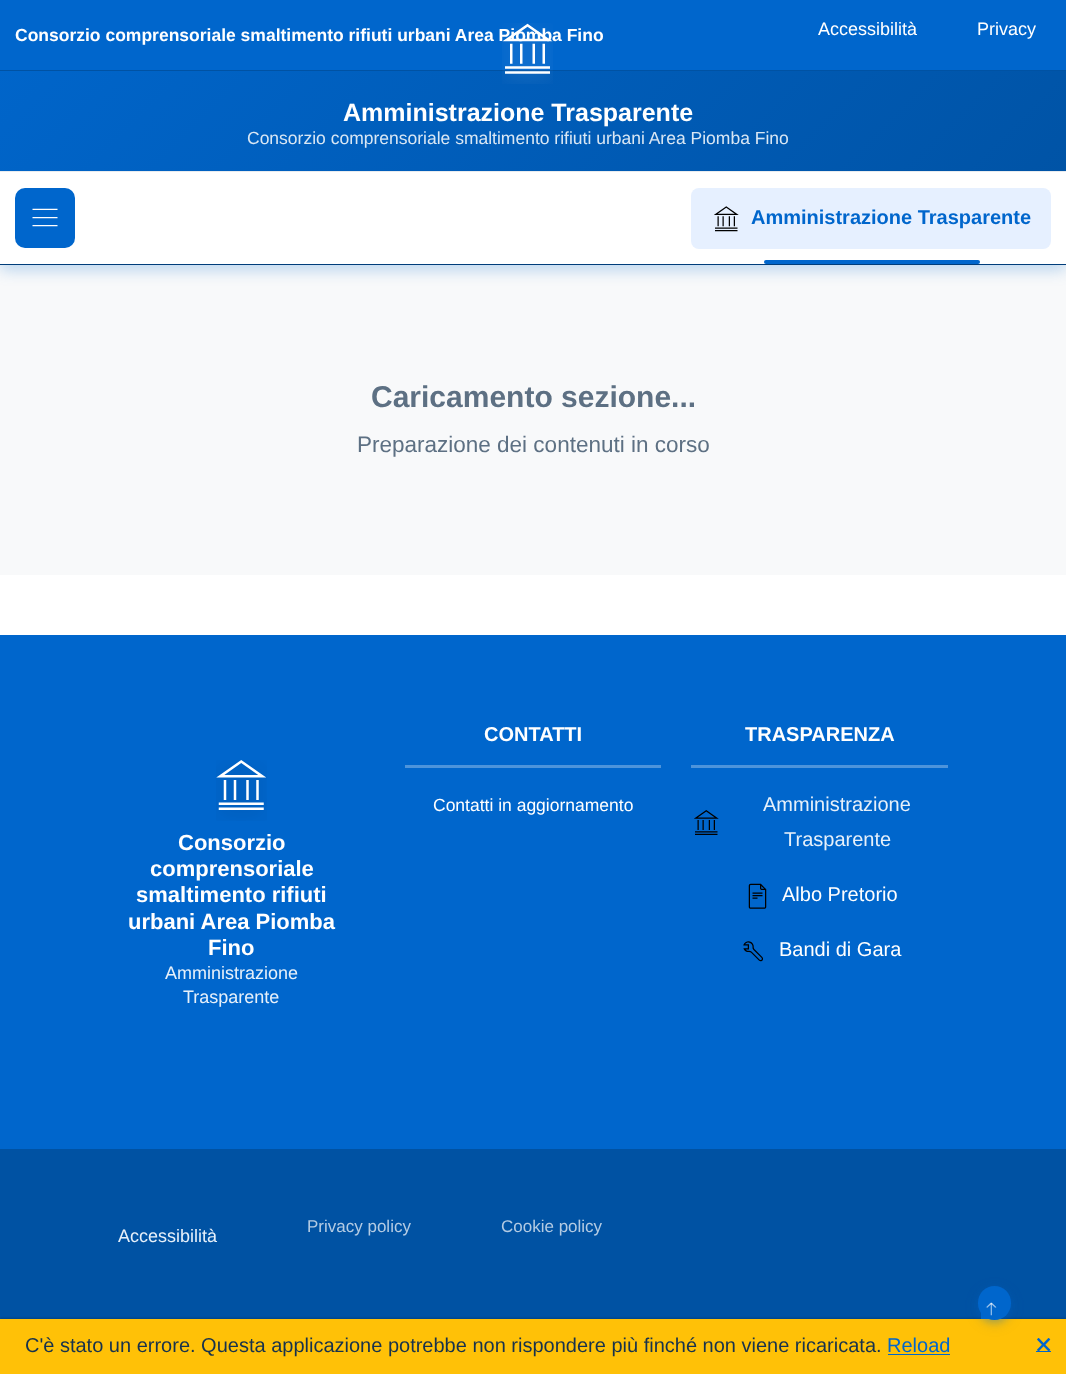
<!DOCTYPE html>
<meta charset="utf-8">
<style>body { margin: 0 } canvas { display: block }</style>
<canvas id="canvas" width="1066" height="1374"></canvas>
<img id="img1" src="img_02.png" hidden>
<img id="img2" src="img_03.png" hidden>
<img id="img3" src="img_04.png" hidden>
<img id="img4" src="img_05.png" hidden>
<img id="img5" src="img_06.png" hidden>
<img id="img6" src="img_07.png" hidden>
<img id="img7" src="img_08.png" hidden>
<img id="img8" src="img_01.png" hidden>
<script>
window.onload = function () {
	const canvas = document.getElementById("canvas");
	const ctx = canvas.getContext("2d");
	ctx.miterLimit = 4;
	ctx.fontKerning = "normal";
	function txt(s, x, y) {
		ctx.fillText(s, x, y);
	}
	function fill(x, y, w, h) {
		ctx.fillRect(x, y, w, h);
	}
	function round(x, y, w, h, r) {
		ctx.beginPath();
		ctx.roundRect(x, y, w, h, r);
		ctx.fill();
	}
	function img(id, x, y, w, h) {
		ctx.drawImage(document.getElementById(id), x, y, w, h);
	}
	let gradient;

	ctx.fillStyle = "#FFFFFF";
	fill(0, 0, 1066, 1374);
	ctx.fillStyle = "#F8F9FA";
	fill(0, 265, 1066, 310);
	ctx.fillStyle = "rgba(0, 102, 204, 0.25)";
	ctx.filter = "blur(7.5px)";
	ctx.beginPath();
	ctx.rect(0, 5, 1066, 265);
	ctx.fill();
	ctx.filter = "none";
	gradient = ctx.createLinearGradient(201, -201, 866, 464);
	gradient.addColorStop(0, "#0066CC");
	gradient.addColorStop(1, "#0052A3");
	ctx.fillStyle = gradient;
	fill(0, 71, 1066, 100);
	ctx.fillStyle = "#003D7A";
	fill(0, 264, 1066, 1);
	ctx.fillStyle = "#0066CC";
	fill(0, 0, 1066, 70);
	ctx.fillStyle = "#0052A3";
	fill(0, 70, 1066, 1);
	ctx.fillStyle = "#FFFFFF";
	fill(0, 172, 1066, 92);
	ctx.fillStyle = "#E9ECEF";
	fill(0, 171, 1066, 1);
	ctx.fillStyle = "#0066CC";
	round(15, 188, 60, 60, 10);
	img("img1", 32, 208, 26, 19);
	ctx.fillStyle = "#E6F0FF";
	round(691, 188, 360, 61, 8);
	img("img2", 714, 206, 25, 26);
	ctx.fillStyle = "#0066CC";
	round(764, 260, 216, 4, 2);
	fill(0, 635, 1066, 514);
	img("img3", 216, 760, 51, 61);
	ctx.fillStyle = "#4D94DB";
	fill(405, 765, 256, 3);
	fill(691, 765, 257, 3);
	img("img4", 694, 810, 25, 25);
	img("img5", 748, 883, 19, 26);
	img("img6", 743, 941, 20, 21);
	ctx.fillStyle = "#0052A3";
	fill(0, 1149, 1066, 170);
	ctx.fillStyle = "rgba(0, 0, 0, 0.2)";
	ctx.filter = "blur(1px)";
	ctx.beginPath();
	ctx.rect(0, 1318, 1066, 56);
	ctx.fill();
	ctx.filter = "none";
	ctx.fillStyle = "#FFC107";
	fill(0, 1319, 1066, 55);
	ctx.fillStyle = "rgba(0, 102, 204, 0.15)";
	ctx.filter = "blur(7px)";
	ctx.beginPath();
	ctx.roundRect(978, 1290, 33, 34, 16.5);
	ctx.fill();
	ctx.filter = "none";
	ctx.fillStyle = "rgba(0, 102, 204, 0.25)";
	ctx.filter = "blur(3.5px)";
	ctx.beginPath();
	ctx.roundRect(978, 1288, 33, 35, 16.5);
	ctx.fill();
	ctx.filter = "none";
	ctx.fillStyle = "#0066CC";
	round(978, 1286, 33, 34, 16.5);
	img("img7", 981, 1302, 20, 17);
	fill(888, 1354, 62, 1);
	fill(1036, 1351, 15, 1);
	ctx.font = "bold 17.5px Liberation Sans";
	ctx.fillStyle = "#FFFFFF";
	txt("Consorzio comprensoriale smaltimento rifiuti urbani Area Piomba Fino", 15, 41);
	ctx.font = "18px Liberation Sans";
	txt("Accessibilità", 818, 35);
	txt("Privacy", 977, 35);
	img("img8", 502, 23, 51, 61);
	ctx.font = "bold 25px Liberation Sans";
	txt("Amministrazione Trasparente", 343, 121);
	ctx.font = "17.5px Liberation Sans";
	ctx.fillStyle = "#D9E7F4";
	txt("Consorzio comprensoriale smaltimento rifiuti urbani Area Piomba Fino", 247, 144);
	ctx.font = "bold 20px Liberation Sans";
	ctx.fillStyle = "#0066CC";
	txt("Amministrazione Trasparente", 751, 224);
	ctx.font = "bold 30px Liberation Sans";
	ctx.fillStyle = "#5D7083";
	txt("Caricamento sezione...", 371, 407);
	ctx.font = "22.5px Liberation Sans";
	txt("Preparazione dei contenuti in corso", 357, 452);
	ctx.font = "bold 22px Liberation Sans";
	ctx.fillStyle = "#FFFFFF";
	txt("Consorzio", 178, 850);
	txt("comprensoriale", 150, 876);
	txt("smaltimento rifiuti", 136, 902);
	txt("urbani Area Piomba", 128, 929);
	txt("Fino", 208, 955);
	ctx.font = "18px Liberation Sans";
	ctx.fillStyle = "#E6F0FA";
	txt("Amministrazione", 165, 979);
	txt("Trasparente", 183, 1003);
	ctx.font = "bold 20px Liberation Sans";
	ctx.fillStyle = "#FFFFFF";
	txt("CONTATTI", 484, 741);
	ctx.font = "17.5px Liberation Sans";
	txt("Contatti in aggiornamento", 433, 811);
	ctx.font = "bold 20px Liberation Sans";
	txt("TRASPARENZA", 745, 741);
	ctx.font = "20px Liberation Sans";
	ctx.fillStyle = "#E6F0FA";
	txt("Amministrazione", 763, 811);
	txt("Trasparente", 784, 846);
	ctx.fillStyle = "#FFFFFF";
	txt("Albo Pretorio", 782, 901);
	txt("Bandi di Gara", 779, 956);
	ctx.font = "18px Liberation Sans";
	ctx.fillStyle = "#E6F0FA";
	txt("Accessibilità", 118, 1242);
	ctx.font = "17px Liberation Sans";
	ctx.fillStyle = "#B3CBE3";
	txt("Privacy policy", 307, 1232);
	txt("Cookie policy", 501, 1232);
	ctx.font = "20px Liberation Sans";
	ctx.fillStyle = "#17324D";
	txt("C'è stato un errore. Questa applicazione potrebbe non rispondere più finché non viene ricaricata.", 25, 1352);
	ctx.fillStyle = "#0066CC";
	txt("Reload", 887, 1352);
	ctx.font = "20px 'Noto Sans Symbols 2'";
	txt("🗙", 1036, 1350);
};
</script>
